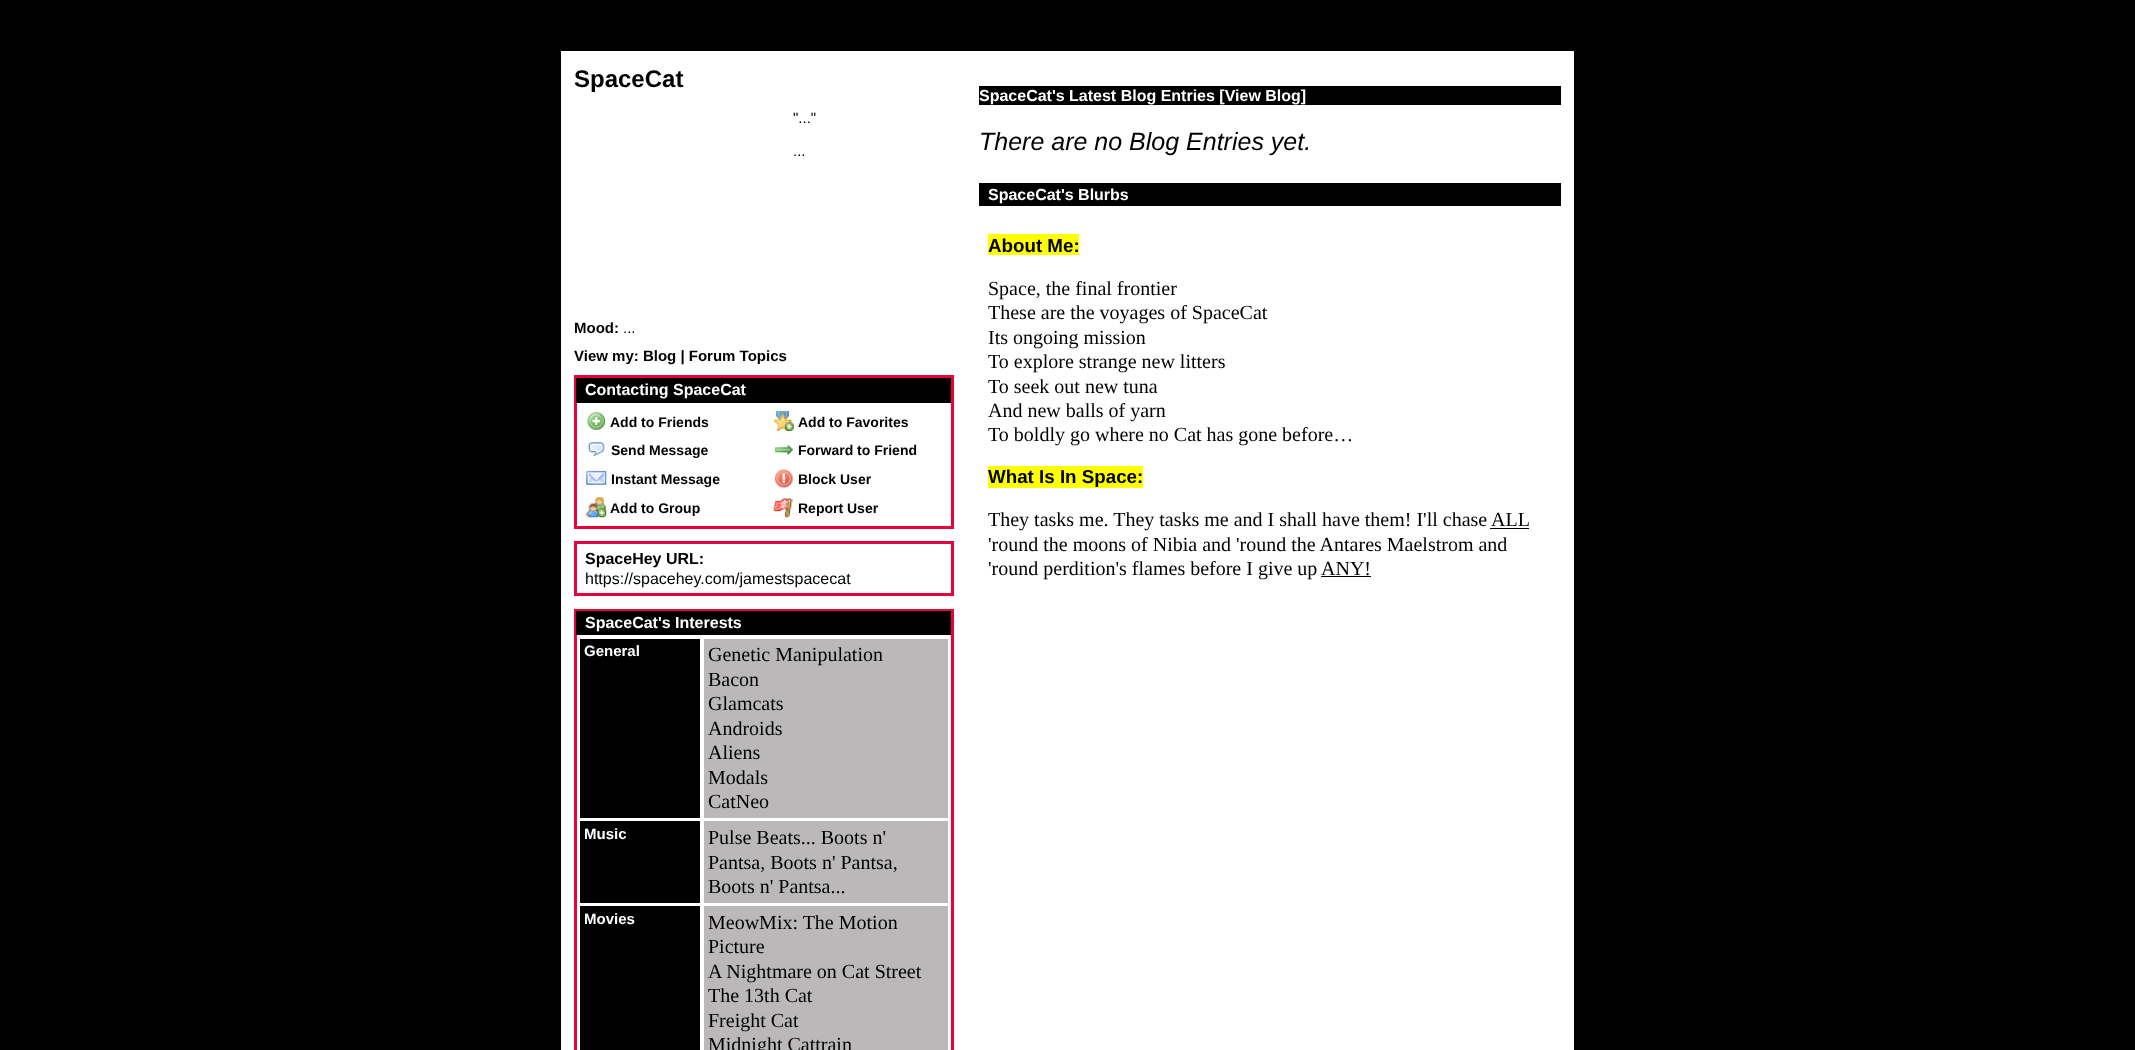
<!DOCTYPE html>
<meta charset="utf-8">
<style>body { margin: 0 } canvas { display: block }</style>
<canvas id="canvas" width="2135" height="1050"></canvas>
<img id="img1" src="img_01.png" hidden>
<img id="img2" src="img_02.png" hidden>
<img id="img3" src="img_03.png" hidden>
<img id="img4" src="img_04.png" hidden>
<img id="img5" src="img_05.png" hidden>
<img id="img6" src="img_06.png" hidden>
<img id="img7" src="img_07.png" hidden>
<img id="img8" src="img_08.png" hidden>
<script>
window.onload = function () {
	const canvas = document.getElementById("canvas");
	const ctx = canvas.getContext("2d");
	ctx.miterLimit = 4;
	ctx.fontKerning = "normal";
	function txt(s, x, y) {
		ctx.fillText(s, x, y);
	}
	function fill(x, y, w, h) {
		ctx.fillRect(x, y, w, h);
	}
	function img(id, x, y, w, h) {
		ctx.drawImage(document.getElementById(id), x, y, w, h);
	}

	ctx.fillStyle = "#000000";
	fill(0, 0, 2135, 1050);
	ctx.fillStyle = "#FFFFFF";
	fill(561, 51, 1013, 999);
	ctx.strokeStyle = "#E8023C";
	ctx.lineWidth = 3;
	ctx.strokeRect(575.5, 376.5, 377, 151);
	ctx.fillStyle = "#000000";
	fill(576, 378, 375, 25);
	img("img1", 587, 412, 19, 18);
	img("img2", 773, 411, 21, 20);
	img("img3", 587, 442, 19, 15);
	img("img4", 774, 444, 19, 11);
	img("img5", 586, 470, 21, 15);
	img("img6", 774, 469, 19, 19);
	img("img7", 586, 497, 21, 21);
	img("img8", 773, 498, 20, 20);
	ctx.strokeRect(575.5, 542.5, 377, 52);
	ctx.strokeRect(575.5, 610.5, 377, 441);
	fill(576, 611, 375, 24);
	fill(580, 639, 120, 179);
	ctx.fillStyle = "#BAB8B9";
	fill(704, 639, 244, 179);
	ctx.fillStyle = "#000000";
	fill(580, 821, 120, 82);
	ctx.fillStyle = "#BAB8B9";
	fill(704, 821, 244, 82);
	ctx.fillStyle = "#000000";
	fill(580, 906, 120, 144);
	ctx.fillStyle = "#BAB8B9";
	fill(704, 906, 244, 144);
	ctx.fillStyle = "#000000";
	fill(979, 86, 582, 19);
	fill(979, 183, 582, 23);
	ctx.fillStyle = "#FFFF00";
	fill(988, 234, 91, 21);
	fill(988, 466, 155, 22);
	ctx.fillStyle = "#000000";
	fill(1490, 528, 39, 1);
	fill(1321, 576, 50, 1);
	ctx.font = "bold 24px Liberation Sans";
	txt("SpaceCat", 574, 87);
	ctx.font = "15px Liberation Sans";
	txt("\"...\"", 793, 123);
	txt("...", 793, 156);
	ctx.font = "bold 15px Liberation Sans";
	txt("Mood:", 574, 333);
	ctx.font = "15px Liberation Sans";
	txt("...", 623, 333);
	ctx.font = "bold 15px Liberation Sans";
	txt("View my: Blog | Forum Topics", 574, 361);
	ctx.font = "bold 16px Liberation Sans";
	ctx.fillStyle = "#FFFFFF";
	txt("Contacting SpaceCat", 585, 395);
	ctx.font = "bold 14px Liberation Sans";
	ctx.fillStyle = "#000000";
	txt("Add to Friends", 610, 427);
	txt("Add to Favorites", 798, 427);
	txt("Send Message", 611, 455);
	txt("Forward to Friend", 798, 455);
	txt("Instant Message", 611, 484);
	txt("Block User", 798, 484);
	txt("Add to Group", 610, 513);
	txt("Report User", 798, 513);
	ctx.font = "bold 16px Liberation Sans";
	txt("SpaceHey URL:", 585, 564);
	ctx.font = "16px Liberation Sans";
	txt("https://spacehey.com/jamestspacecat", 585, 584);
	ctx.font = "bold 16px Liberation Sans";
	ctx.fillStyle = "#FFFFFF";
	txt("SpaceCat's Interests", 585, 628);
	ctx.font = "bold 15px Liberation Sans";
	txt("General", 584, 656);
	ctx.font = "20px Liberation Serif";
	ctx.fillStyle = "#000000";
	txt("Genetic Manipulation", 708, 661);
	txt("Bacon", 708, 686);
	txt("Glamcats", 708, 710);
	txt("Androids", 708, 735);
	txt("Aliens", 708, 759);
	txt("Modals", 708, 784);
	txt("CatNeo", 708, 808);
	ctx.font = "bold 15px Liberation Sans";
	ctx.fillStyle = "#FFFFFF";
	txt("Music", 584, 839);
	ctx.font = "20px Liberation Serif";
	ctx.fillStyle = "#000000";
	txt("Pulse Beats... Boots n'", 708, 844);
	txt("Pantsa, Boots n' Pantsa,", 708, 869);
	txt("Boots n' Pantsa...", 708, 893);
	ctx.font = "bold 15px Liberation Sans";
	ctx.fillStyle = "#FFFFFF";
	txt("Movies", 584, 924);
	ctx.font = "20px Liberation Serif";
	ctx.fillStyle = "#000000";
	txt("MeowMix: The Motion", 708, 929);
	txt("Picture", 708, 953);
	txt("A Nightmare on Cat Street", 708, 978);
	txt("The 13th Cat", 708, 1002);
	txt("Freight Cat", 708, 1027);
	txt("Midnight Cattrain", 708, 1051);
	ctx.font = "bold 16px Liberation Sans";
	ctx.fillStyle = "#FFFFFF";
	txt("SpaceCat's Latest Blog Entries [View Blog]", 979, 101);
	ctx.font = "italic 25px Liberation Sans";
	ctx.fillStyle = "#000000";
	txt("There are no Blog Entries yet.", 979, 150);
	ctx.font = "bold 16px Liberation Sans";
	ctx.fillStyle = "#FFFFFF";
	txt("SpaceCat's Blurbs", 988, 200);
	ctx.font = "bold 18.75px Liberation Sans";
	ctx.fillStyle = "#000000";
	txt("About Me:", 988, 252);
	ctx.font = "20px Liberation Serif";
	txt("Space, the final frontier", 988, 295);
	txt("These are the voyages of SpaceCat", 988, 319);
	txt("Its ongoing mission", 988, 344);
	txt("To explore strange new litters", 988, 368);
	txt("To seek out new tuna", 988, 393);
	txt("And new balls of yarn", 988, 417);
	txt("To boldly go where no Cat has gone before…", 988, 441);
	ctx.font = "bold 18.75px Liberation Sans";
	txt("What Is In Space:", 988, 483);
	ctx.font = "20px Liberation Serif";
	txt("They tasks me. They tasks me and I shall have them! I'll chase ALL", 988, 526);
	txt("'round the moons of Nibia and 'round the Antares Maelstrom and", 988, 551);
	txt("'round perdition's flames before I give up", 988, 575);
	txt("ANY!", 1321, 575);
};
</script>
